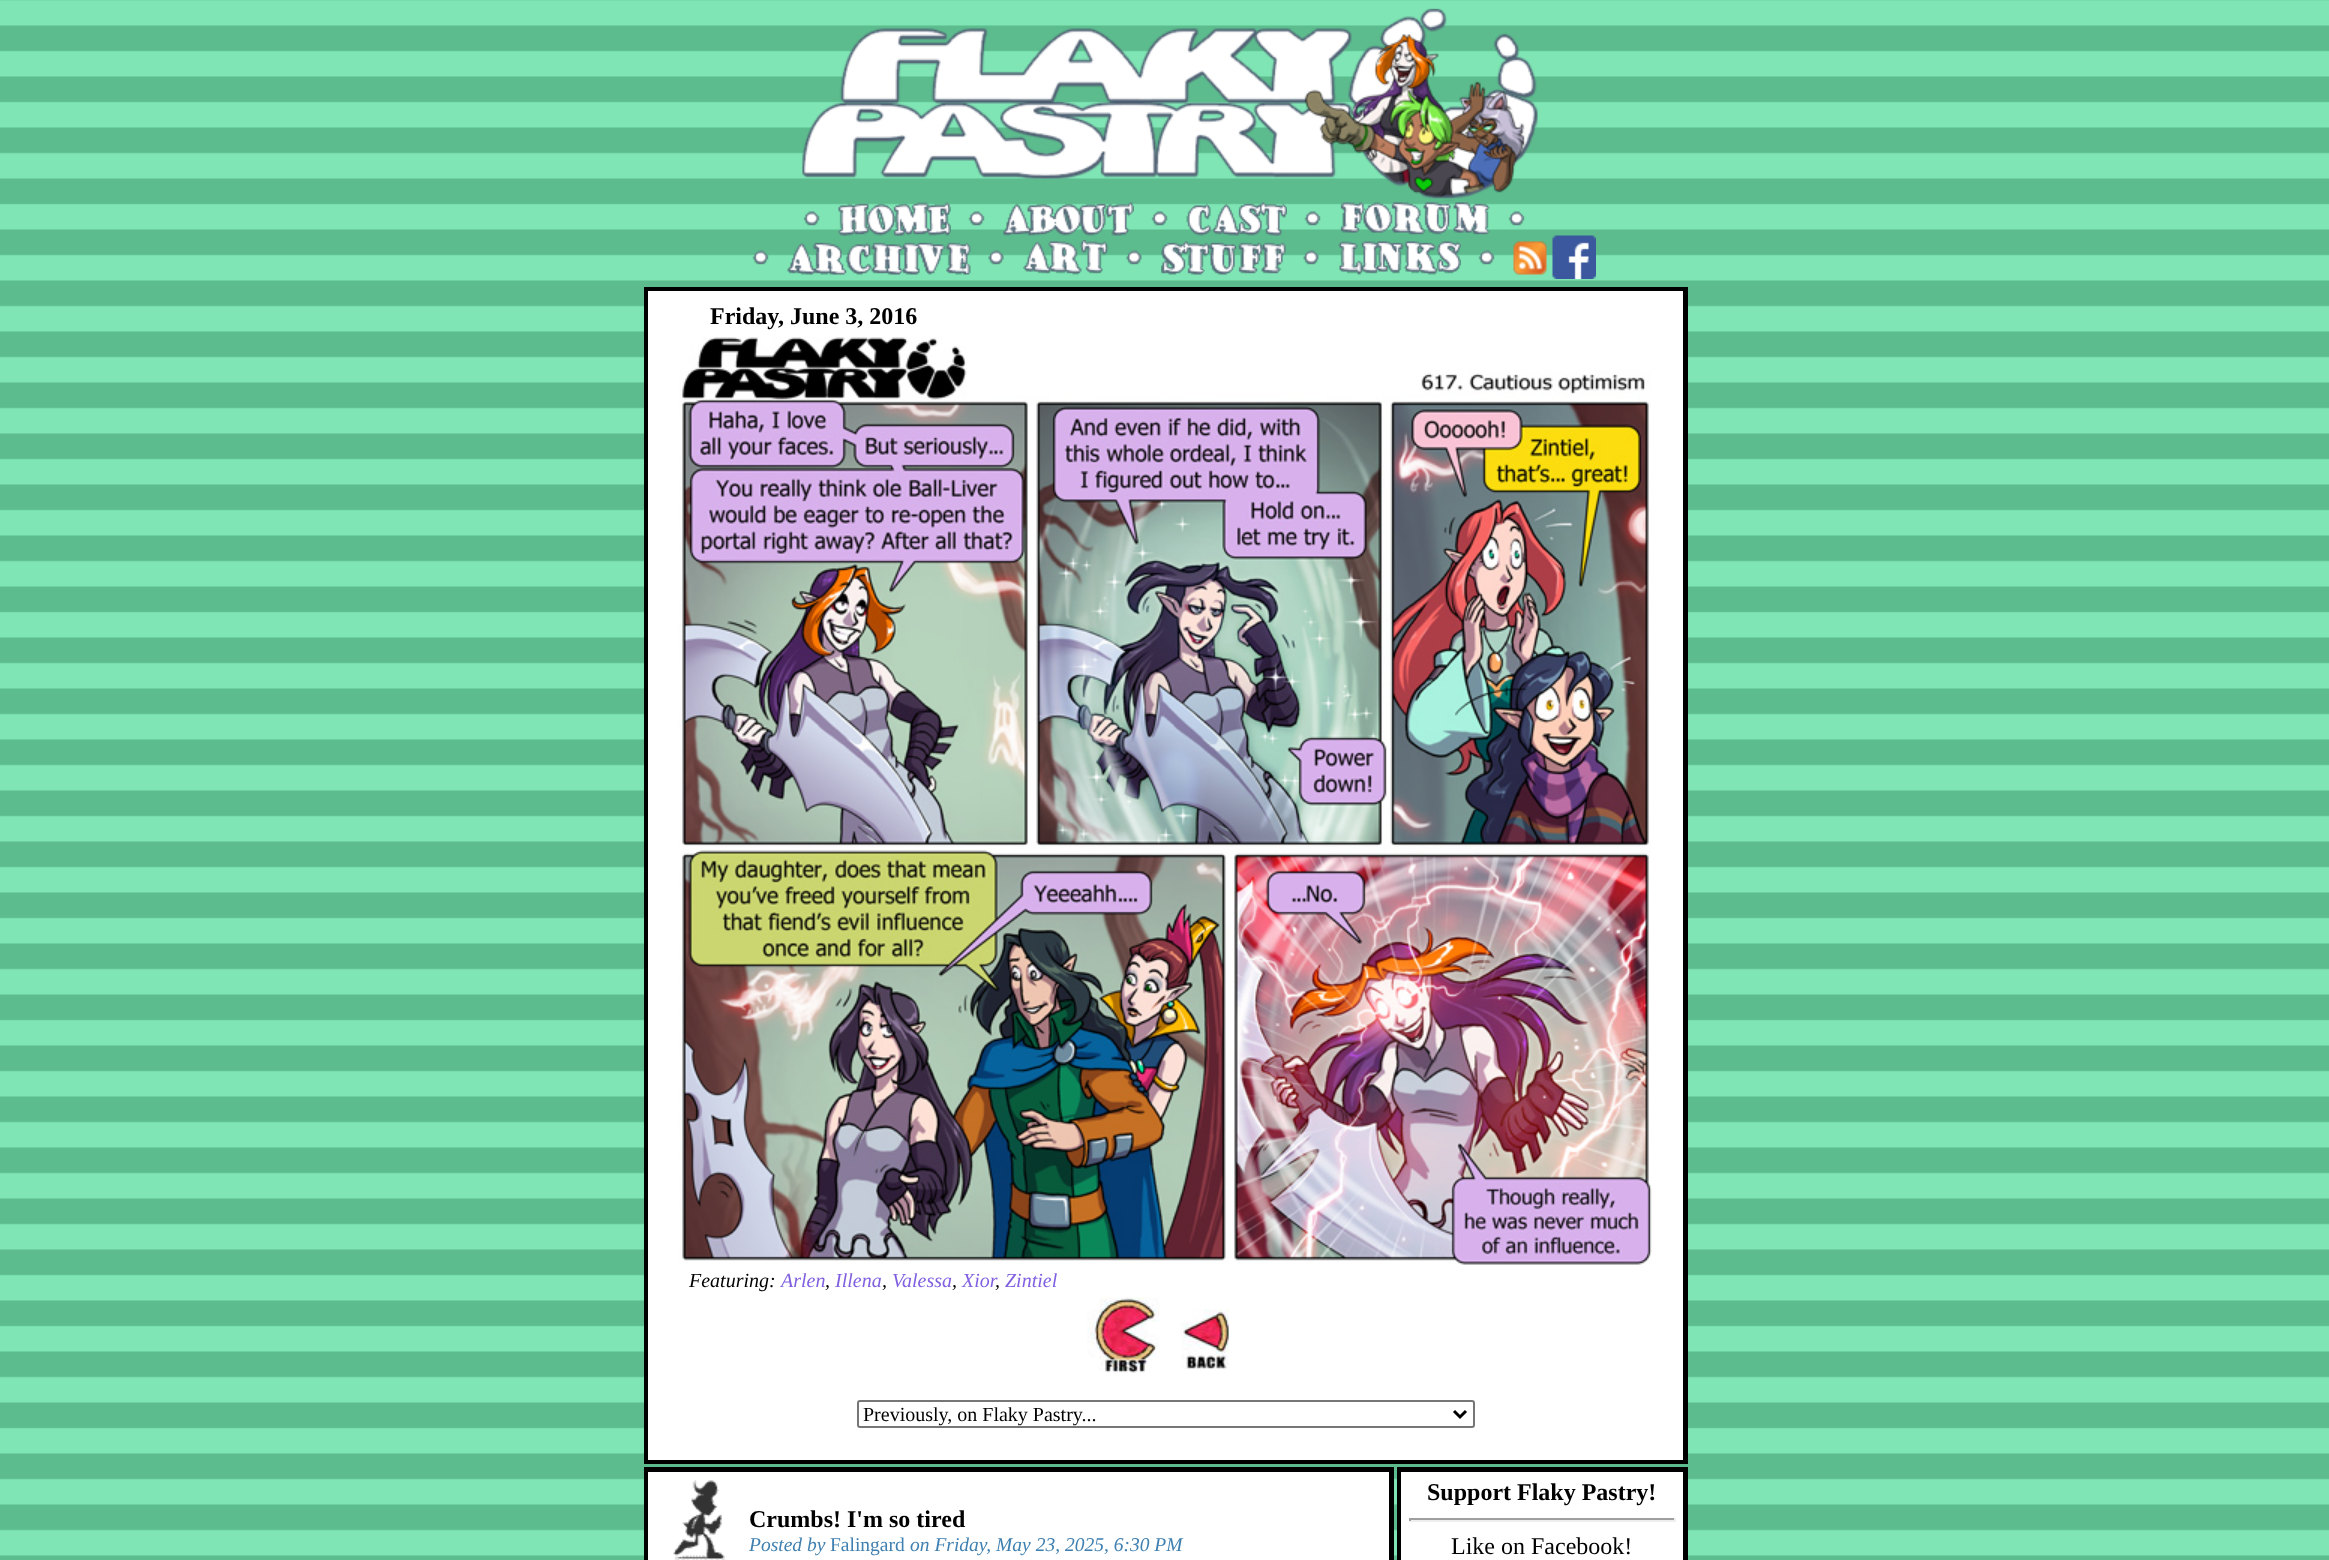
<!DOCTYPE html>
<meta charset="utf-8">
<style>body { margin: 0 } canvas { display: block }</style>
<canvas id="canvas" width="2329" height="1560"></canvas>
<img id="img1" src="img_01.png" hidden>
<img id="img2" src="img_02.png" hidden>
<img id="img3" src="img_03.png" hidden>
<img id="img4" src="img_04.png" hidden>
<img id="img5" src="img_05.png" hidden>
<img id="img6" src="img_06.png" hidden>
<img id="img7" src="img_07.png" hidden>
<img id="img8" src="img_08.png" hidden>
<img id="img9" src="img_09.png" hidden>
<img id="img10" src="img_10.png" hidden>
<img id="img11" src="img_11.png" hidden>
<img id="img12" src="img_12.png" hidden>
<img id="img13" src="img_13.png" hidden>
<img id="img14" src="img_14.png" hidden>
<img id="img15" src="img_15.png" hidden>
<img id="img16" src="img_16.png" hidden>
<img id="img17" src="img_17.png" hidden>
<img id="img18" src="img_18.png" hidden>
<img id="img19" src="img_19.png" hidden>
<img id="img20" src="img_20.png" hidden>
<img id="img21" src="img_21.png" hidden>
<img id="img22" src="img_22.png" hidden>
<script>
window.onload = function () {
	const canvas = document.getElementById("canvas");
	const ctx = canvas.getContext("2d");
	ctx.miterLimit = 4;
	ctx.fontKerning = "normal";
	function txt(s, x, y) {
		ctx.fillText(s, x, y);
	}
	function fill(x, y, w, h) {
		ctx.fillRect(x, y, w, h);
	}
	function img(id, x, y, w, h) {
		ctx.drawImage(document.getElementById(id), x, y, w, h);
	}

	ctx.fillStyle = "#5CBC8E";
	fill(0, 0, 2329, 1560);
	img("img1", 0, 0, 2329, 1556);
	img("img2", 802, 8, 736, 193);
	img("img3", 803, 211, 17, 15);
	img("img4", 838, 202, 113, 34);
	img("img3", 968, 211, 17, 15);
	img("img5", 1003, 202, 131, 34);
	img("img6", 1151, 211, 17, 15);
	img("img7", 1186, 202, 101, 34);
	img("img3", 1304, 211, 17, 15);
	img("img8", 1340, 202, 150, 33);
	img("img6", 1508, 211, 17, 15);
	img("img9", 752, 250, 17, 15);
	img("img10", 787, 242, 184, 33);
	img("img11", 988, 250, 16, 15);
	img("img12", 1023, 240, 86, 35);
	img("img11", 1126, 250, 16, 15);
	img("img13", 1161, 241, 125, 34);
	img("img14", 1303, 250, 16, 15);
	img("img15", 1338, 241, 123, 34);
	img("img16", 1478, 250, 17, 15);
	img("img17", 1513, 241, 34, 34);
	img("img18", 1552, 235, 44, 44);
	ctx.fillStyle = "#000000";
	fill(644, 287, 1044, 1177);
	ctx.fillStyle = "#FFFFFF";
	fill(648, 291, 1035, 1169);
	img("img19", 678, 337, 974, 928);
	img("img20", 1087, 1297, 73, 76);
	img("img21", 1181, 1309, 48, 61);
	ctx.beginPath();
	ctx.roundRect(858, 1401, 616, 26, 2);
	ctx.strokeStyle = "#767676";
	ctx.lineWidth = 2;
	ctx.stroke();
	ctx.beginPath();
	ctx.moveTo(1454, 1411);
	ctx.lineTo(1460, 1417);
	ctx.lineTo(1466, 1411);
	ctx.strokeStyle = "#000000";
	ctx.lineWidth = 3;
	ctx.stroke();
	ctx.fillStyle = "#000000";
	fill(644, 1467, 750, 93);
	ctx.fillStyle = "#FFFFFF";
	fill(648, 1472, 741, 88);
	img("img22", 673, 1480, 53, 80);
	ctx.fillStyle = "#000000";
	fill(1397, 1467, 291, 93);
	ctx.fillStyle = "#FFFFFF";
	fill(1401, 1472, 282, 88);
	ctx.fillStyle = "#9F9F9F";
	fill(1409, 1518, 267, 2);
	ctx.fillStyle = "#EEEEEE";
	fill(1674, 1518, 2, 3);
	fill(1409, 1520, 267, 2);
	ctx.fillStyle = "#9F9F9F";
	fill(1409, 1518, 2, 3);
	ctx.font = "bold 24px Liberation Serif";
	ctx.fillStyle = "#000000";
	txt("Friday, June 3, 2016", 710, 324);
	ctx.font = "italic 20px Liberation Serif";
	txt("Featuring:", 689, 1287);
	ctx.fillStyle = "#8060E0";
	txt("Arlen", 781, 1287);
	ctx.fillStyle = "#000000";
	txt(",", 825, 1287);
	ctx.fillStyle = "#8060E0";
	txt("Illena", 835, 1287);
	ctx.fillStyle = "#000000";
	txt(",", 882, 1287);
	ctx.fillStyle = "#8060E0";
	txt("Valessa", 892, 1287);
	ctx.fillStyle = "#000000";
	txt(",", 952, 1287);
	ctx.fillStyle = "#8060E0";
	txt("Xior", 962, 1287);
	txt("Zintiel", 1005, 1287);
	ctx.fillStyle = "#000000";
	txt(",", 995, 1287);
	ctx.font = "20px Liberation Serif";
	txt("Previously, on Flaky Pastry...", 863, 1421);
	ctx.font = "bold 24px Liberation Serif";
	txt("Crumbs! I'm so tired", 749, 1527);
	ctx.font = "italic 19.5px Liberation Serif";
	ctx.fillStyle = "#4080B0";
	txt("Posted by", 749, 1551);
	ctx.font = "19.5px Liberation Serif";
	txt("Falingard", 830, 1551);
	ctx.font = "italic 19.5px Liberation Serif";
	txt("on Friday, May 23, 2025, 6:30 PM", 910, 1551);
	ctx.font = "bold 24px Liberation Serif";
	ctx.fillStyle = "#000000";
	txt("Support Flaky Pastry!", 1427, 1500);
	ctx.font = "24px Liberation Serif";
	txt("Like on Facebook!", 1451, 1554);
};
</script>
